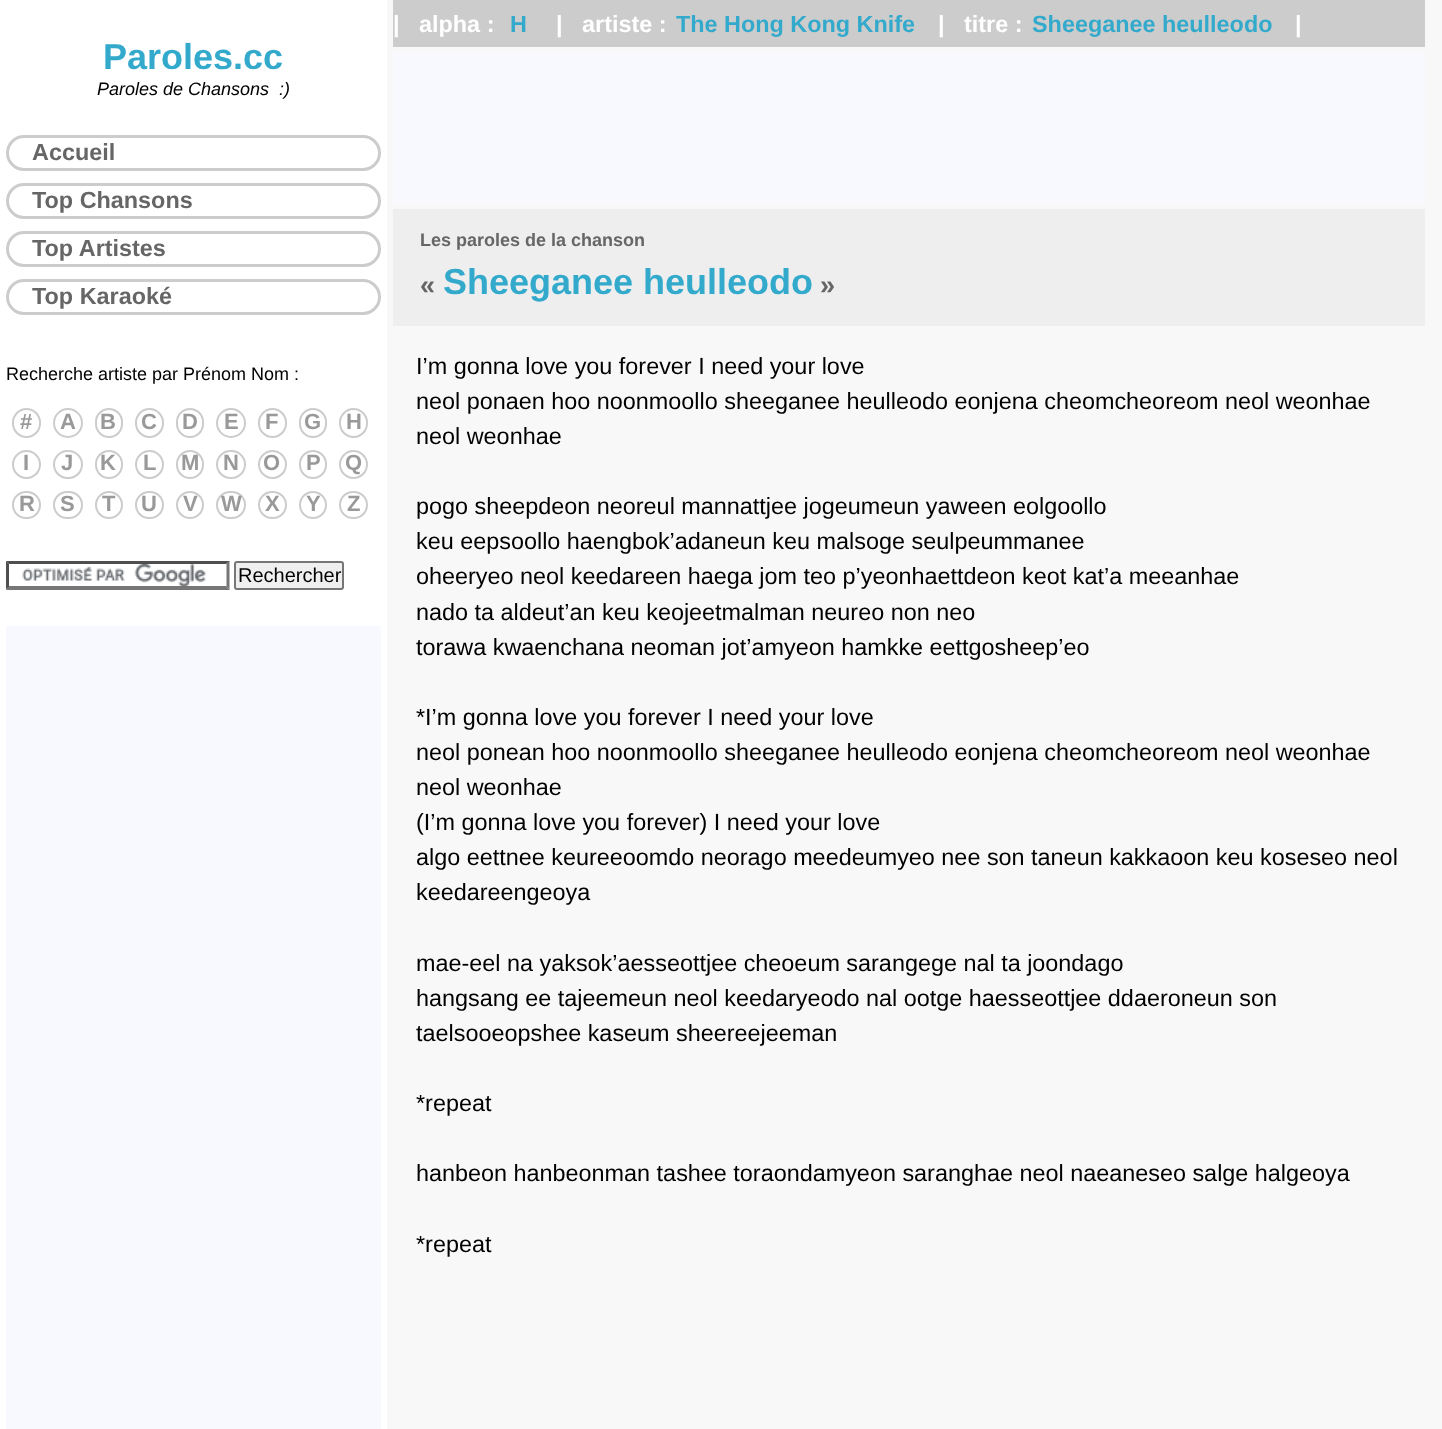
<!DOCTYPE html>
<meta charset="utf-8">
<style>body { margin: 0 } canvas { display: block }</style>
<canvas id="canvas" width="1442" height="1429"></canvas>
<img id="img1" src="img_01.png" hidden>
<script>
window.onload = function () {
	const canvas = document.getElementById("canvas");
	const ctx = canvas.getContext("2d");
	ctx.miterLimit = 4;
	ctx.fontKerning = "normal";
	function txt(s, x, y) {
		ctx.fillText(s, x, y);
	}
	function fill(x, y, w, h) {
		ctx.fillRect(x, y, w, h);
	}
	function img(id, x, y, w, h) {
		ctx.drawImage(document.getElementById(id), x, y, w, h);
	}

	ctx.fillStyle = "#F8F8F8";
	fill(0, 0, 1442, 1429);
	ctx.fillStyle = "#FFFFFF";
	fill(0, 0, 387, 1429);
	ctx.beginPath();
	ctx.roundRect(7.5, 136.5, 372, 33, 16.5);
	ctx.strokeStyle = "#CCCCCC";
	ctx.lineWidth = 3;
	ctx.stroke();
	ctx.beginPath();
	ctx.roundRect(7.5, 184.5, 372, 33, 16.5);
	ctx.stroke();
	ctx.beginPath();
	ctx.roundRect(7.5, 232.5, 372, 33, 16.5);
	ctx.stroke();
	ctx.beginPath();
	ctx.roundRect(7.5, 280.5, 372, 33, 16.5);
	ctx.stroke();
	ctx.beginPath();
	ctx.roundRect(13, 409, 27, 28, 13.5);
	ctx.lineWidth = 2;
	ctx.stroke();
	ctx.beginPath();
	ctx.arc(68, 423, 14, 0, Math.PI * 2);
	ctx.stroke();
	ctx.beginPath();
	ctx.roundRect(96, 409, 26, 28, 13);
	ctx.stroke();
	ctx.beginPath();
	ctx.roundRect(136, 409, 27, 28, 13.5);
	ctx.stroke();
	ctx.beginPath();
	ctx.roundRect(177, 409, 26, 28, 13);
	ctx.stroke();
	ctx.beginPath();
	ctx.arc(231, 423, 14, 0, Math.PI * 2);
	ctx.stroke();
	ctx.beginPath();
	ctx.roundRect(259, 409, 27, 28, 13.5);
	ctx.stroke();
	ctx.beginPath();
	ctx.roundRect(300, 409, 26, 28, 13);
	ctx.stroke();
	ctx.beginPath();
	ctx.roundRect(340, 409, 27, 28, 13.5);
	ctx.stroke();
	ctx.beginPath();
	ctx.arc(26.5, 464.5, 13.5, 0, Math.PI * 2);
	ctx.stroke();
	ctx.beginPath();
	ctx.roundRect(54, 451, 28, 27, 13.5);
	ctx.stroke();
	ctx.beginPath();
	ctx.roundRect(96, 451, 26, 27, 13);
	ctx.stroke();
	ctx.beginPath();
	ctx.arc(149.5, 464.5, 13.5, 0, Math.PI * 2);
	ctx.stroke();
	ctx.beginPath();
	ctx.roundRect(177, 451, 26, 27, 13);
	ctx.stroke();
	ctx.beginPath();
	ctx.roundRect(217, 451, 28, 27, 13.5);
	ctx.stroke();
	ctx.beginPath();
	ctx.arc(272.5, 464.5, 13.5, 0, Math.PI * 2);
	ctx.stroke();
	ctx.beginPath();
	ctx.roundRect(300, 451, 26, 27, 13);
	ctx.stroke();
	ctx.beginPath();
	ctx.arc(353.5, 464.5, 13.5, 0, Math.PI * 2);
	ctx.stroke();
	ctx.beginPath();
	ctx.roundRect(13, 492, 27, 26, 13);
	ctx.stroke();
	ctx.beginPath();
	ctx.roundRect(54, 492, 28, 26, 13);
	ctx.stroke();
	ctx.beginPath();
	ctx.arc(109, 505, 13, 0, Math.PI * 2);
	ctx.stroke();
	ctx.beginPath();
	ctx.roundRect(136, 492, 27, 26, 13);
	ctx.stroke();
	ctx.beginPath();
	ctx.arc(190, 505, 13, 0, Math.PI * 2);
	ctx.stroke();
	ctx.beginPath();
	ctx.roundRect(217, 492, 28, 26, 13);
	ctx.stroke();
	ctx.beginPath();
	ctx.roundRect(259, 492, 27, 26, 13);
	ctx.stroke();
	ctx.beginPath();
	ctx.arc(313, 505, 13, 0, Math.PI * 2);
	ctx.stroke();
	ctx.beginPath();
	ctx.roundRect(340, 492, 27, 26, 13);
	ctx.stroke();
	img("img1", 22, 564, 184, 22);
	ctx.fillStyle = "#4F4F4F";
	ctx.beginPath();
	ctx.moveTo(6, 561);
	ctx.lineTo(230, 561);
	ctx.lineTo(226, 564);
	ctx.lineTo(9, 564);
	ctx.closePath();
	ctx.fill();
	ctx.fillStyle = "#767676";
	ctx.beginPath();
	ctx.moveTo(229.5, 561);
	ctx.lineTo(229.5, 589.5);
	ctx.lineTo(226.5, 586.5);
	ctx.lineTo(226.5, 564);
	ctx.closePath();
	ctx.fill();
	ctx.beginPath();
	ctx.moveTo(230, 590);
	ctx.lineTo(6, 590);
	ctx.lineTo(9, 586);
	ctx.lineTo(226, 586);
	ctx.closePath();
	ctx.fill();
	ctx.fillStyle = "#4F4F4F";
	ctx.beginPath();
	ctx.moveTo(6, 589.5);
	ctx.lineTo(6, 561);
	ctx.lineTo(9, 564);
	ctx.lineTo(9, 586.5);
	ctx.closePath();
	ctx.fill();
	ctx.fillStyle = "#EFEFEF";
	ctx.beginPath();
	ctx.roundRect(235, 562, 108, 27, 2);
	ctx.fill();
	ctx.strokeStyle = "#767676";
	ctx.stroke();
	ctx.fillStyle = "#F8F8FF";
	fill(6, 626, 375, 803);
	ctx.fillStyle = "#CCCCCC";
	fill(393, 0, 1032, 47);
	ctx.fillStyle = "#F8F8FF";
	fill(393, 53, 1032, 150);
	ctx.fillStyle = "#EEEEEE";
	fill(393, 209, 1032, 117);
	ctx.font = "bold 36px Liberation Sans";
	ctx.fillStyle = "#33AACC";
	txt("Paroles.cc", 103, 69);
	ctx.font = "italic 18px Liberation Sans";
	ctx.fillStyle = "#000000";
	txt("Paroles de Chansons  :)", 97, 95);
	ctx.font = "bold 23.4px Liberation Sans";
	ctx.fillStyle = "#666666";
	txt("Accueil", 32, 160);
	txt("Top Chansons", 32, 208);
	txt("Top Artistes", 32, 256);
	txt("Top Karaoké", 32, 304);
	ctx.font = "18px Liberation Sans";
	ctx.fillStyle = "#000000";
	txt("Recherche artiste par Prénom Nom :", 6, 380);
	ctx.font = "bold 22px Liberation Sans";
	ctx.fillStyle = "#999999";
	txt("#", 20, 429);
	txt("A", 60, 429);
	txt("B", 100, 429);
	txt("C", 141, 429);
	txt("D", 182, 429);
	txt("E", 224, 429);
	txt("F", 265, 429);
	txt("G", 304, 429);
	txt("H", 346, 429);
	txt("I", 23, 470);
	txt("J", 61, 470);
	txt("K", 100, 470);
	txt("L", 143, 470);
	txt("M", 181, 470);
	txt("N", 223, 470);
	txt("O", 263, 470);
	txt("P", 306, 470);
	txt("Q", 345, 470);
	txt("R", 19, 511);
	txt("S", 60, 511);
	txt("T", 102, 511);
	txt("U", 141, 511);
	txt("V", 183, 511);
	txt("W", 221, 511);
	txt("X", 265, 511);
	txt("Y", 306, 511);
	txt("Z", 347, 511);
	ctx.font = "20px Liberation Sans";
	ctx.fillStyle = "#000000";
	txt("Rechercher", 238, 582);
	ctx.font = "bold 23.4px Liberation Sans";
	ctx.fillStyle = "#FFFFFF";
	txt("|   alpha :", 393, 32);
	ctx.fillStyle = "#33AACC";
	txt("H", 510, 32);
	ctx.fillStyle = "#FFFFFF";
	txt("|   artiste :", 556, 32);
	ctx.fillStyle = "#33AACC";
	txt("The Hong Kong Knife", 676, 32);
	ctx.fillStyle = "#FFFFFF";
	txt("|   titre :", 938, 32);
	ctx.fillStyle = "#33AACC";
	txt("Sheeganee heulleodo", 1032, 32);
	ctx.fillStyle = "#FFFFFF";
	txt("|", 1295, 32);
	ctx.font = "bold 18px Liberation Sans";
	ctx.fillStyle = "#666666";
	txt("Les paroles de la chanson", 420, 246);
	ctx.font = "bold 27px Liberation Sans";
	txt("«", 420, 294);
	ctx.font = "bold 36px Liberation Sans";
	ctx.fillStyle = "#33AACC";
	txt("Sheeganee heulleodo", 443, 294);
	ctx.font = "bold 27px Liberation Sans";
	ctx.fillStyle = "#666666";
	txt("»", 820, 294);
	ctx.font = "23.4px Liberation Sans";
	ctx.fillStyle = "#000000";
	txt("I’m gonna love you forever I need your love", 416, 374);
	txt("neol ponaen hoo noonmoollo sheeganee heulleodo eonjena cheomcheoreom neol weonhae", 416, 409);
	txt("neol weonhae", 416, 444);
	txt("pogo sheepdeon neoreul mannattjee jogeumeun yaween eolgoollo", 416, 514);
	txt("keu eepsoollo haengbok’adaneun keu malsoge seulpeummanee", 416, 549);
	txt("oheeryeo neol keedareen haega jom teo p’yeonhaettdeon keot kat’a meeanhae", 416, 584);
	txt("nado ta aldeut’an keu keojeetmalman neureo non neo", 416, 620);
	txt("torawa kwaenchana neoman jot’amyeon hamkke eettgosheep’eo", 416, 655);
	txt("*I’m gonna love you forever I need your love", 416, 725);
	txt("neol ponean hoo noonmoollo sheeganee heulleodo eonjena cheomcheoreom neol weonhae", 416, 760);
	txt("neol weonhae", 416, 795);
	txt("(I’m gonna love you forever) I need your love", 416, 830);
	txt("algo eettnee keureeoomdo neorago meedeumyeo nee son taneun kakkaoon keu koseseo neol", 416, 865);
	txt("keedareengeoya", 416, 900);
	txt("mae-eel na yaksok’aesseottjee cheoeum sarangege nal ta joondago", 416, 971);
	txt("hangsang ee tajeemeun neol keedaryeodo nal ootge haesseottjee ddaeroneun son", 416, 1006);
	txt("taelsooeopshee kaseum sheereejeeman", 416, 1041);
	txt("*repeat", 416, 1111);
	txt("hanbeon hanbeonman tashee toraondamyeon saranghae neol naeaneseo salge halgeoya", 416, 1181);
	txt("*repeat", 416, 1252);
};
</script>
